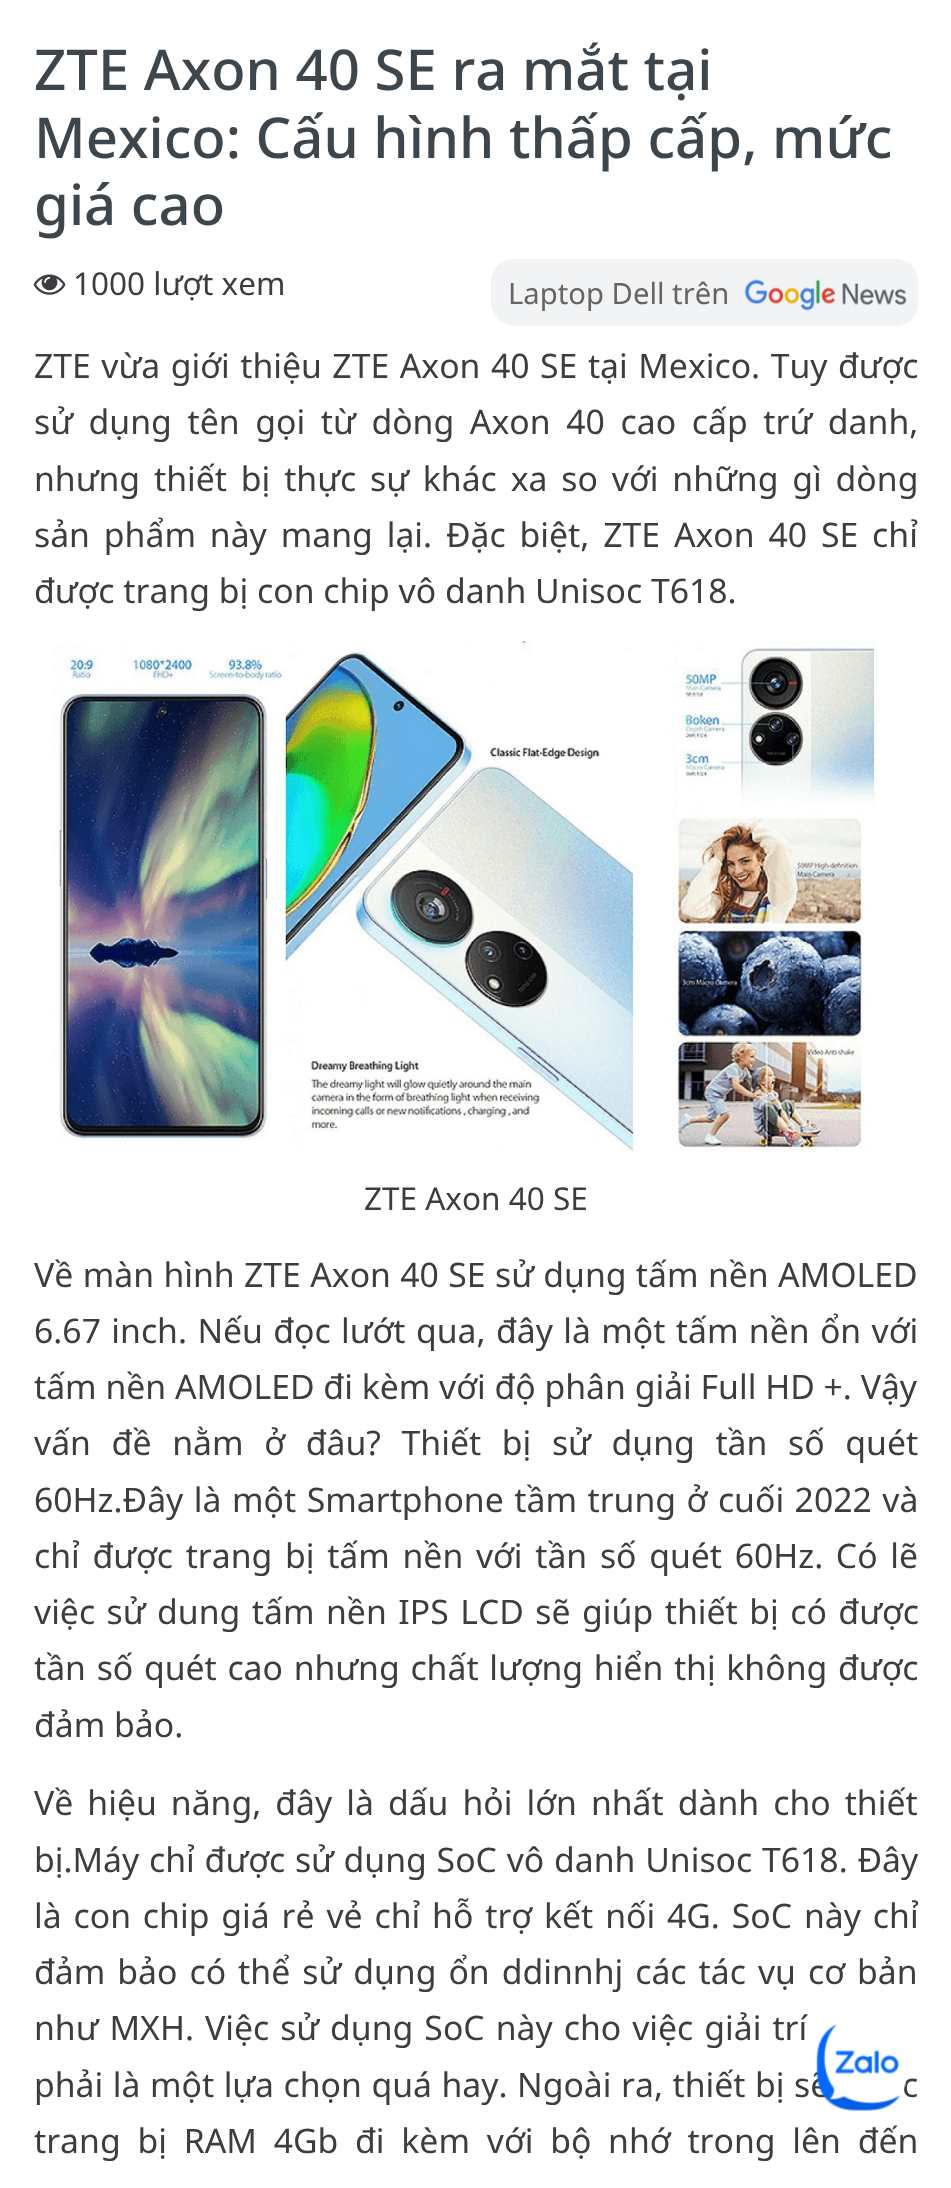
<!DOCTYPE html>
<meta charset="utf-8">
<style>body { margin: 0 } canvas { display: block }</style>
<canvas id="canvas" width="951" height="2188"></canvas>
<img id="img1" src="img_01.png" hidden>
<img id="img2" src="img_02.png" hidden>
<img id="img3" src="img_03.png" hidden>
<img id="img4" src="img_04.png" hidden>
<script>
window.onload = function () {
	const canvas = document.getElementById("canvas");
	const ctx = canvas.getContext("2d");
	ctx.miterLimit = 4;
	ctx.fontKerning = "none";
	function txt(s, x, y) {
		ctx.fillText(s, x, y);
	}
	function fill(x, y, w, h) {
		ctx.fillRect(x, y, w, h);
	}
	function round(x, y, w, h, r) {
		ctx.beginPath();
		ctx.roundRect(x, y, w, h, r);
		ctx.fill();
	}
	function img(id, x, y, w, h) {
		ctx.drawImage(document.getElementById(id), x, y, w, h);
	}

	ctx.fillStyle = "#FFFFFF";
	fill(0, 0, 951, 2188);
	img("img1", 33, 274, 33, 21);
	ctx.fillStyle = "#F1F3F4";
	round(491, 259, 427, 67, 23);
	img("img2", 744, 259, 174, 67);
	img("img3", 52, 641, 824, 511);
	ctx.font = "500 56.25px Noto Sans";
	ctx.fillStyle = "#3D464D";
	txt("ZTE Axon 40 SE ra mắt tại", 34, 90);
	txt("Mexico: Cấu hình thấp cấp, mức", 34, 158);
	txt("giá cao", 34, 225);
	ctx.font = "31.5px Noto Sans";
	ctx.fillStyle = "#3C3D41";
	txt("1000 lượt xem", 73, 295);
	ctx.font = "29.25px Noto Sans";
	ctx.fillStyle = "#656565";
	txt("Laptop Dell trên", 508, 304);
	ctx.wordSpacing = "1.75px";
	ctx.font = "33.75px Noto Sans";
	ctx.fillStyle = "#3C3D41";
	txt("ZTE vừa giới thiệu ZTE Axon 40 SE tại Mexico. Tuy được", 34, 378);
	ctx.wordSpacing = "6.9px";
	txt("sử dụng tên gọi từ dòng Axon 40 cao cấp trứ danh,", 34, 434);
	ctx.wordSpacing = "5.1px";
	txt("nhưng thiết bị thực sự khác xa so với những gì dòng", 34, 491);
	txt("sản phẩm này mang lại. Đặc biệt, ZTE Axon 40 SE chỉ", 34, 547);
	ctx.wordSpacing = "0px";
	txt("được trang bị con chip vô danh Unisoc T618.", 34, 603);
	ctx.font = "31.5px Noto Sans";
	txt("ZTE Axon 40 SE", 364, 1210);
	ctx.wordSpacing = "0.6px";
	ctx.font = "33.75px Noto Sans";
	txt("Về màn hình ZTE Axon 40 SE sử dụng tấm nền AMOLED", 34, 1287);
	ctx.wordSpacing = "1.6px";
	txt("6.67 inch. Nếu đọc lướt qua, đây là một tấm nền ổn với", 34, 1343);
	ctx.wordSpacing = "0px";
	txt("tấm nền AMOLED đi kèm với độ phân giải Full HD +. Vậy", 34, 1399);
	ctx.wordSpacing = "11.9px";
	txt("vấn đề nằm ở đâu? Thiết bị sử dụng tần số quét", 34, 1455);
	ctx.wordSpacing = "1.75px";
	txt("60Hz.Đây là một Smartphone tầm trung ở cuối 2022 và", 34, 1512);
	ctx.wordSpacing = "3.9px";
	txt("chỉ được trang bị tấm nền với tần số quét 60Hz. Có lẽ", 34, 1568);
	ctx.wordSpacing = "2.75px";
	txt("việc sử dung tấm nền IPS LCD sẽ giúp thiết bị có được", 34, 1624);
	ctx.wordSpacing = "1.9px";
	txt("tần số quét cao nhưng chất lượng hiển thị không được", 34, 1680);
	ctx.wordSpacing = "0px";
	txt("đảm bảo.", 34, 1737);
	ctx.wordSpacing = "5.25px";
	txt("Về hiệu năng, đây là dấu hỏi lớn nhất dành cho thiết", 34, 1815);
	ctx.wordSpacing = "1px";
	txt("bị.Máy chỉ được sử dụng SoC vô danh Unisoc T618. Đây", 34, 1872);
	ctx.wordSpacing = "3.1px";
	txt("là con chip giá rẻ vẻ chỉ hỗ trợ kết nối 4G. SoC này chỉ", 34, 1928);
	ctx.wordSpacing = "3.25px";
	txt("đảm bảo có thể sử dụng ổn ddinnhj các tác vụ cơ bản", 34, 1984);
	ctx.wordSpacing = "2.25px";
	txt("như MXH. Việc sử dụng SoC này cho việc giải trí", 34, 2040);
	ctx.wordSpacing = "0.75px";
	txt("phải là một lựa chọn quá hay. Ngoài ra, thiết bị sẽ", 34, 2097);
	txt("c", 902, 2097);
	ctx.wordSpacing = "8px";
	txt("trang bị RAM 4Gb đi kèm với bộ nhớ trong lên đến", 34, 2153);
	img("img4", 816, 2021, 91, 90);
};
</script>
